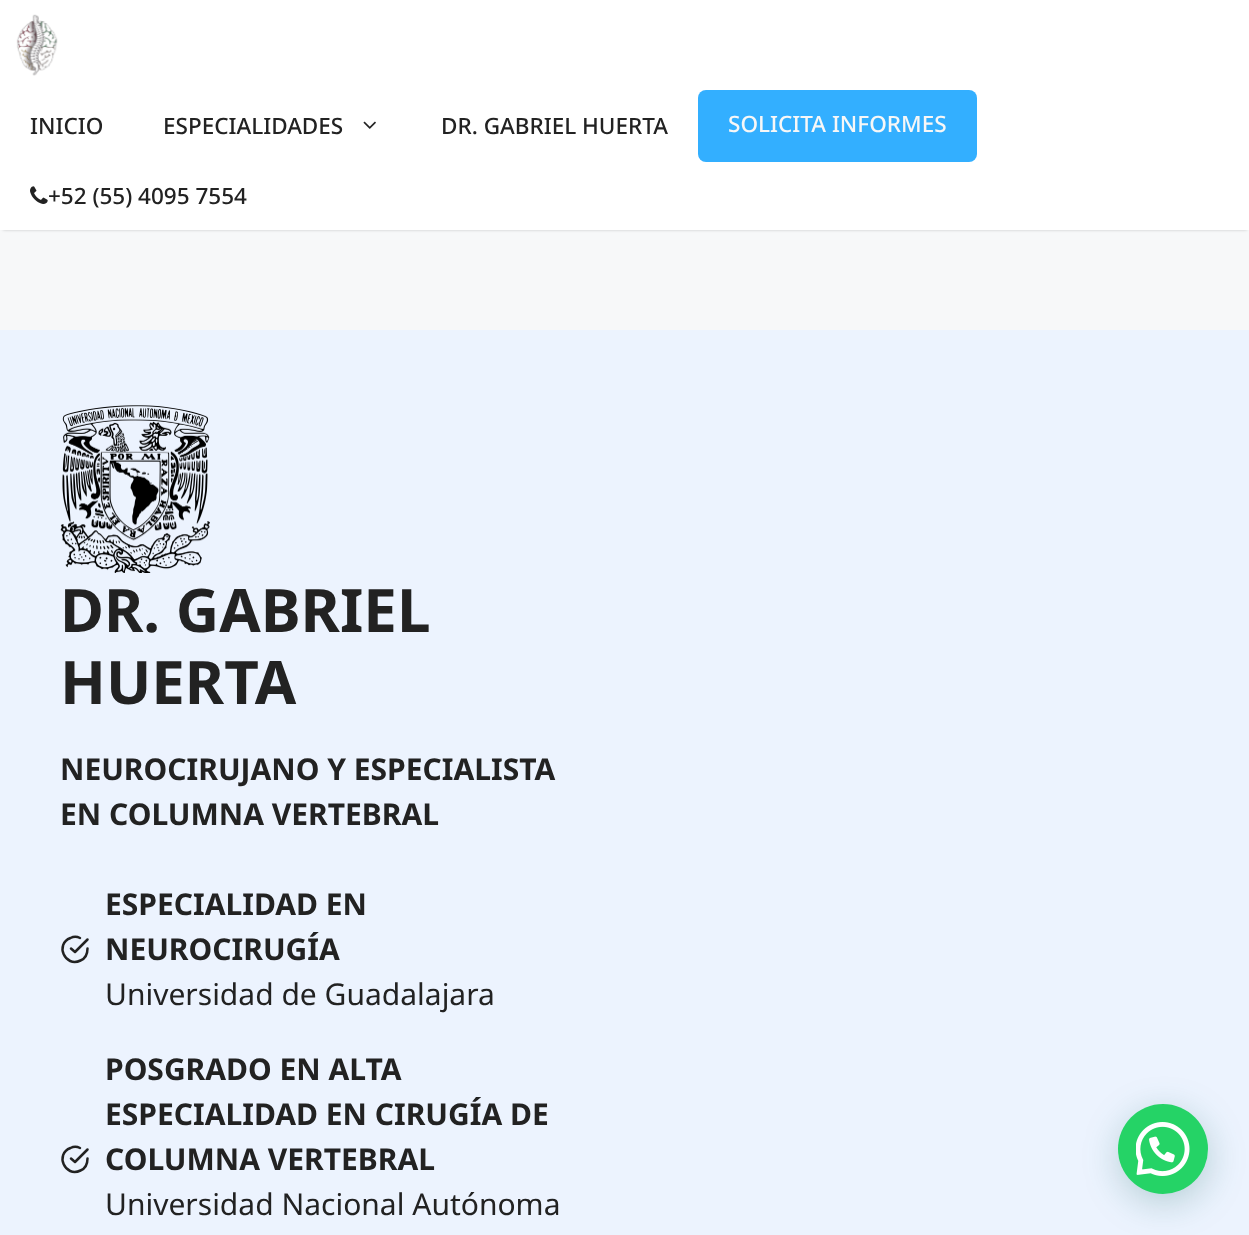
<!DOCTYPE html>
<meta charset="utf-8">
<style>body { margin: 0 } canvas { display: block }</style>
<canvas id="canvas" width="1249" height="1235"></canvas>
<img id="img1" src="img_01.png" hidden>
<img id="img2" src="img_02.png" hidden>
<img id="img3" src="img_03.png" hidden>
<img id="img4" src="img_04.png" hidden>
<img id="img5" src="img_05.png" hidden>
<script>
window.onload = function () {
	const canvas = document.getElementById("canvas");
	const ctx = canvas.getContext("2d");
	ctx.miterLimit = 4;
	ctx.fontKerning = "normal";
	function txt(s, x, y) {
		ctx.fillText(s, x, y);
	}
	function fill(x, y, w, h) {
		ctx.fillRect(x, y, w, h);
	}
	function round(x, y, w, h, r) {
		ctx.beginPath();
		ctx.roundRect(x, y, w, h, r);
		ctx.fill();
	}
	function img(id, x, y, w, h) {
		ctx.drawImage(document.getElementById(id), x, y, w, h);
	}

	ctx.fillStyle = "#F7F8F9";
	fill(0, 0, 1249, 1235);
	ctx.fillStyle = "rgba(0, 0, 0, 0.2)";
	ctx.filter = "blur(1.5px)";
	ctx.beginPath();
	ctx.rect(3, 6, 1244, 224);
	ctx.fill();
	ctx.filter = "none";
	ctx.fillStyle = "#FFFFFF";
	fill(0, 0, 1249, 230);
	img("img1", 16, 14, 42, 62);
	img("img2", 363, 121, 13, 8);
	ctx.fillStyle = "#33AFFF";
	round(698, 90, 279, 72, 8);
	img("img3", 30, 186, 18, 18);
	ctx.fillStyle = "#ECF3FE";
	fill(0, 330, 1249, 905);
	img("img4", 60, 405, 150, 168);
	ctx.beginPath();
	ctx.moveTo(87.5, 948.5);
	ctx.bezierCurveTo(87.5, 953.5, 85.5, 958.5, 80.5, 960.5);
	ctx.bezierCurveTo(65, 968, 54.5, 944, 70.5, 938);
	ctx.bezierCurveTo(73.5, 936.5, 77, 936.5, 80, 938);
	ctx.moveTo(87.5, 939.5);
	ctx.lineTo(75, 952);
	ctx.lineTo(71, 948.5);
	ctx.strokeStyle = "#222222";
	ctx.lineWidth = 2.5;
	ctx.lineCap = "round";
	ctx.lineJoin = "round";
	ctx.stroke();
	ctx.beginPath();
	ctx.moveTo(87.5, 1158.5);
	ctx.bezierCurveTo(87.5, 1163.5, 85.5, 1168.5, 80.5, 1170.5);
	ctx.bezierCurveTo(65, 1178, 54.5, 1154, 70.5, 1148);
	ctx.bezierCurveTo(73.5, 1146.5, 77, 1146.5, 80, 1148);
	ctx.moveTo(87.5, 1149.5);
	ctx.lineTo(75, 1162);
	ctx.lineTo(71, 1158.5);
	ctx.stroke();
	ctx.fillStyle = "rgba(7, 94, 84, 0.24)";
	ctx.filter = "blur(18px)";
	ctx.beginPath();
	ctx.roundRect(1119, 1113, 90, 90, 45);
	ctx.fill();
	ctx.filter = "none";
	ctx.fillStyle = "#25D366";
	ctx.beginPath();
	ctx.arc(1163, 1149, 45, 0, Math.PI * 2);
	ctx.fill();
	img("img5", 1136, 1122, 54, 54);
	ctx.font = "500 22.5px Noto Sans";
	ctx.fillStyle = "#222222";
	txt("INICIO", 30, 134);
	txt("ESPECIALIDADES", 163, 134);
	txt("DR. GABRIEL HUERTA", 441, 134);
	ctx.fillStyle = "#F7F7F7";
	txt("SOLICITA INFORMES", 728, 132);
	ctx.fillStyle = "#222222";
	txt("+52 (55) 4095 7554", 48, 204);
	ctx.font = "bold 60px Noto Sans";
	txt("DR. GABRIEL", 60, 632);
	txt("HUERTA", 60, 704);
	ctx.font = "bold 30px Noto Sans";
	txt("NEUROCIRUJANO Y ESPECIALISTA", 60, 780);
	txt("EN COLUMNA VERTEBRAL", 60, 825);
	txt("ESPECIALIDAD EN", 105, 915);
	txt("NEUROCIRUGÍA", 105, 960);
	ctx.font = "30px Noto Sans";
	txt("Universidad de Guadalajara", 105, 1005);
	ctx.font = "bold 30px Noto Sans";
	txt("POSGRADO EN ALTA", 105, 1080);
	txt("ESPECIALIDAD EN CIRUGÍA DE", 105, 1125);
	txt("COLUMNA VERTEBRAL", 105, 1170);
	ctx.font = "30px Noto Sans";
	txt("Universidad Nacional Autónoma", 105, 1215);
};
</script>
